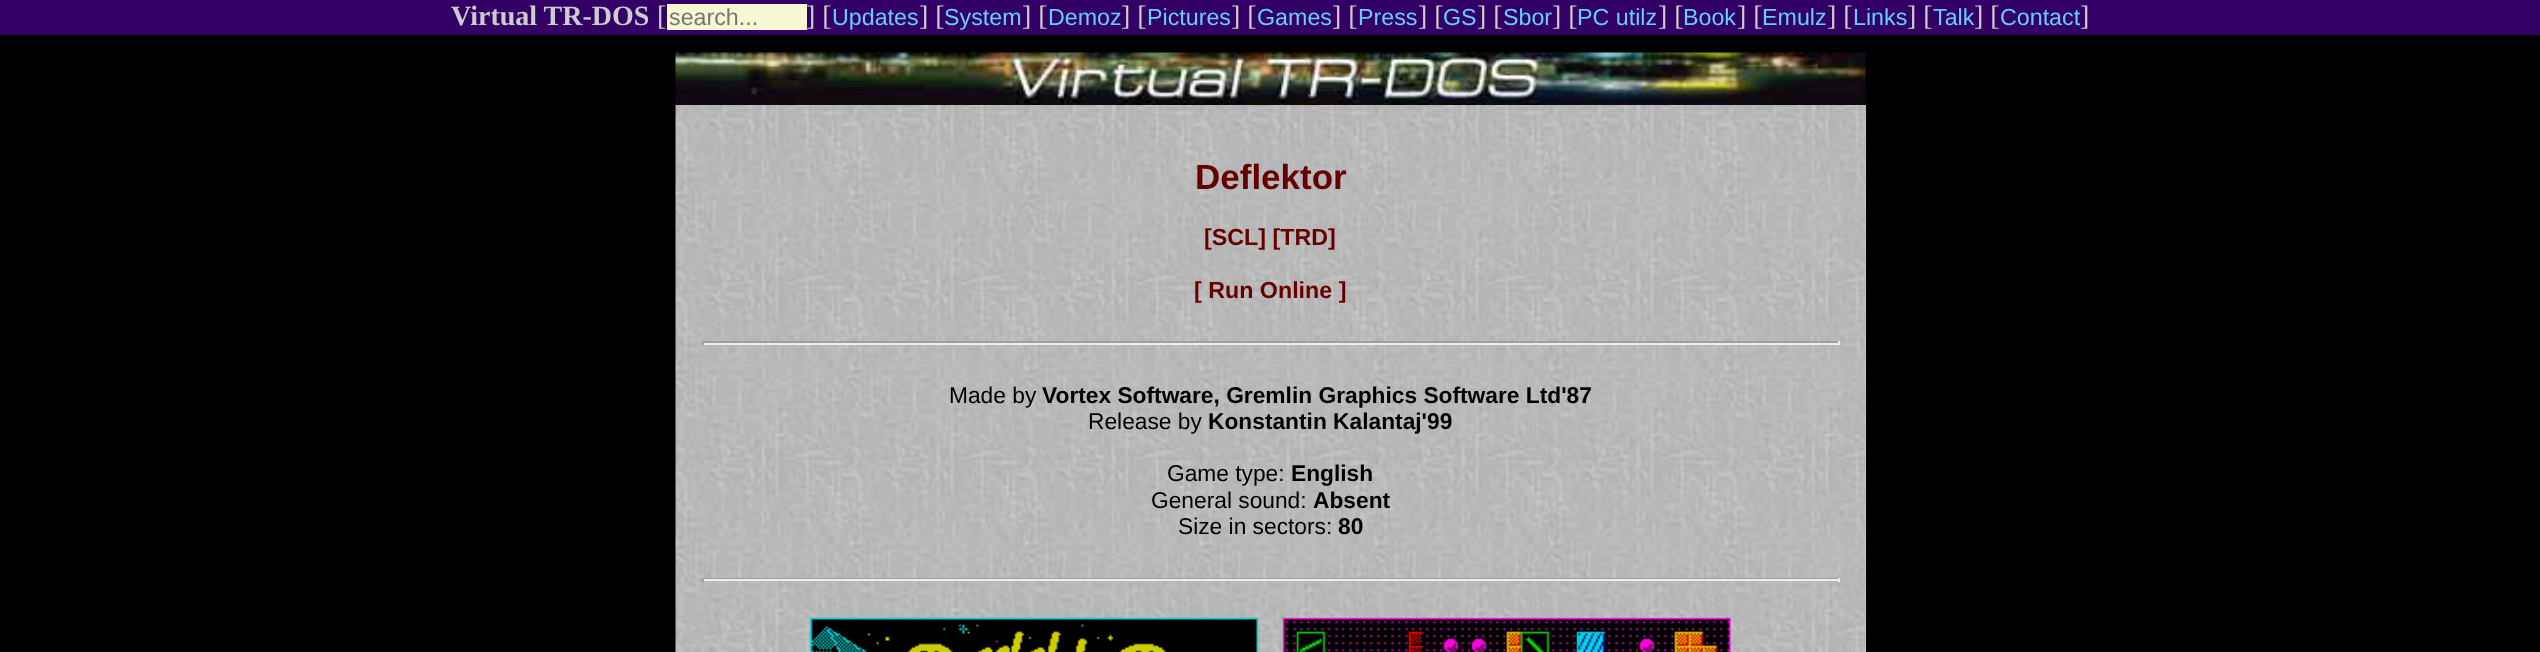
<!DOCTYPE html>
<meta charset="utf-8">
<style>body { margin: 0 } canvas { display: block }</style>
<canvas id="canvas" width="2540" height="652"></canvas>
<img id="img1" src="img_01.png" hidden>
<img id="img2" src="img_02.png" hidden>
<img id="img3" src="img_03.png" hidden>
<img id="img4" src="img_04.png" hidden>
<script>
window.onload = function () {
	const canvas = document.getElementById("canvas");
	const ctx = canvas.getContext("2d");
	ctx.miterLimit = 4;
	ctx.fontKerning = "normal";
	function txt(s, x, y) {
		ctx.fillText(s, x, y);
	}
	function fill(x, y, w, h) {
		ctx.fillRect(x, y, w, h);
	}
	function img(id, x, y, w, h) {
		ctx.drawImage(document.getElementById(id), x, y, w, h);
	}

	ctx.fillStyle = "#000000";
	fill(0, 0, 2540, 652);
	ctx.fillStyle = "#330066";
	fill(0, 0, 2540, 35);
	ctx.fillStyle = "#F5F8D3";
	fill(667, 4, 140, 26);
	img("img1", 675, 52, 1191, 53);
	ctx.fillStyle = "#CCCCCC";
	fill(1865, 105, 1, 547);
	img("img2", 675, 105, 1191, 547);
	ctx.fillStyle = "#9F9F9F";
	fill(702, 341, 1137, 2);
	ctx.fillStyle = "#EEEEEE";
	fill(1838, 341, 2, 4);
	fill(702, 343, 1137, 2);
	ctx.fillStyle = "#9F9F9F";
	fill(702, 341, 2, 4);
	fill(702, 578, 1137, 1);
	ctx.fillStyle = "#EEEEEE";
	fill(1838, 578, 2, 4);
	fill(702, 579, 1137, 2);
	ctx.fillStyle = "#9F9F9F";
	fill(702, 578, 2, 4);
	img("img3", 810, 617, 449, 35);
	img("img4", 1282, 617, 449, 35);
	ctx.font = "bold 28px Liberation Serif";
	ctx.fillStyle = "#CCCCCC";
	txt("Virtual TR-DOS", 451, 25);
	ctx.font = "28px Liberation Serif";
	txt("[", 657, 25);
	ctx.font = "23.25px Liberation Sans";
	ctx.fillStyle = "#757575";
	txt("search...", 669, 25);
	ctx.font = "28px Liberation Serif";
	ctx.fillStyle = "#CCCCCC";
	txt("] [", 806, 25);
	ctx.font = "23.25px Liberation Sans";
	ctx.fillStyle = "#66CCFF";
	txt("Updates", 832, 25);
	ctx.font = "28px Liberation Serif";
	ctx.fillStyle = "#CCCCCC";
	txt("] [", 919, 25);
	ctx.font = "23.25px Liberation Sans";
	ctx.fillStyle = "#66CCFF";
	txt("System", 944, 25);
	ctx.font = "28px Liberation Serif";
	ctx.fillStyle = "#CCCCCC";
	txt("] [", 1022, 25);
	ctx.font = "23.25px Liberation Sans";
	ctx.fillStyle = "#66CCFF";
	txt("Demoz", 1048, 25);
	ctx.font = "28px Liberation Serif";
	ctx.fillStyle = "#CCCCCC";
	txt("] [", 1121, 25);
	ctx.font = "23.25px Liberation Sans";
	ctx.fillStyle = "#66CCFF";
	txt("Pictures", 1147, 25);
	ctx.font = "28px Liberation Serif";
	ctx.fillStyle = "#CCCCCC";
	txt("] [", 1231, 25);
	ctx.font = "23.25px Liberation Sans";
	ctx.fillStyle = "#66CCFF";
	txt("Games", 1257, 25);
	ctx.font = "28px Liberation Serif";
	ctx.fillStyle = "#CCCCCC";
	txt("] [", 1332, 25);
	ctx.font = "23.25px Liberation Sans";
	ctx.fillStyle = "#66CCFF";
	txt("Press", 1358, 25);
	ctx.font = "28px Liberation Serif";
	ctx.fillStyle = "#CCCCCC";
	txt("] [", 1418, 25);
	ctx.font = "23.25px Liberation Sans";
	ctx.fillStyle = "#66CCFF";
	txt("GS", 1443, 25);
	ctx.font = "28px Liberation Serif";
	ctx.fillStyle = "#CCCCCC";
	txt("] [", 1477, 25);
	ctx.font = "23.25px Liberation Sans";
	ctx.fillStyle = "#66CCFF";
	txt("Sbor", 1503, 25);
	ctx.font = "28px Liberation Serif";
	ctx.fillStyle = "#CCCCCC";
	txt("] [", 1552, 25);
	ctx.font = "23.25px Liberation Sans";
	ctx.fillStyle = "#66CCFF";
	txt("PC utilz", 1577, 25);
	ctx.font = "28px Liberation Serif";
	ctx.fillStyle = "#CCCCCC";
	txt("] [", 1658, 25);
	ctx.font = "23.25px Liberation Sans";
	ctx.fillStyle = "#66CCFF";
	txt("Book", 1683, 25);
	ctx.font = "28px Liberation Serif";
	ctx.fillStyle = "#CCCCCC";
	txt("] [", 1737, 25);
	ctx.font = "23.25px Liberation Sans";
	ctx.fillStyle = "#66CCFF";
	txt("Emulz", 1762, 25);
	ctx.font = "28px Liberation Serif";
	ctx.fillStyle = "#CCCCCC";
	txt("] [", 1827, 25);
	ctx.font = "23.25px Liberation Sans";
	ctx.fillStyle = "#66CCFF";
	txt("Links", 1853, 25);
	ctx.font = "28px Liberation Serif";
	ctx.fillStyle = "#CCCCCC";
	txt("] [", 1907, 25);
	ctx.font = "23.25px Liberation Sans";
	ctx.fillStyle = "#66CCFF";
	txt("Talk", 1933, 25);
	ctx.font = "28px Liberation Serif";
	ctx.fillStyle = "#CCCCCC";
	txt("] [", 1974, 25);
	ctx.font = "23.25px Liberation Sans";
	ctx.fillStyle = "#66CCFF";
	txt("Contact", 2000, 25);
	ctx.font = "28px Liberation Serif";
	ctx.fillStyle = "#CCCCCC";
	txt("]", 2080, 25);
	ctx.font = "bold 35px Liberation Sans";
	ctx.fillStyle = "#660000";
	txt("Deflektor", 1195, 189);
	ctx.font = "bold 23.25px Liberation Sans";
	txt("[SCL] [TRD]", 1204, 245);
	txt("[ Run Online ]", 1194, 298);
	ctx.font = "22.75px Liberation Sans";
	ctx.fillStyle = "#000000";
	txt("Made by", 949, 403);
	ctx.font = "bold 22.75px Liberation Sans";
	txt("Vortex Software, Gremlin Graphics Software Ltd'87", 1042, 403);
	ctx.font = "22.75px Liberation Sans";
	txt("Release by", 1088, 429);
	ctx.font = "bold 22.75px Liberation Sans";
	txt("Konstantin Kalantaj'99", 1208, 429);
	ctx.font = "22.75px Liberation Sans";
	txt("Game type:", 1167, 481);
	ctx.font = "bold 22.75px Liberation Sans";
	txt("English", 1291, 481);
	ctx.font = "22.75px Liberation Sans";
	txt("General sound:", 1151, 508);
	ctx.font = "bold 22.75px Liberation Sans";
	txt("Absent", 1313, 508);
	ctx.font = "22.75px Liberation Sans";
	txt("Size in sectors:", 1178, 534);
	ctx.font = "bold 22.75px Liberation Sans";
	txt("80", 1338, 534);
};
</script>
